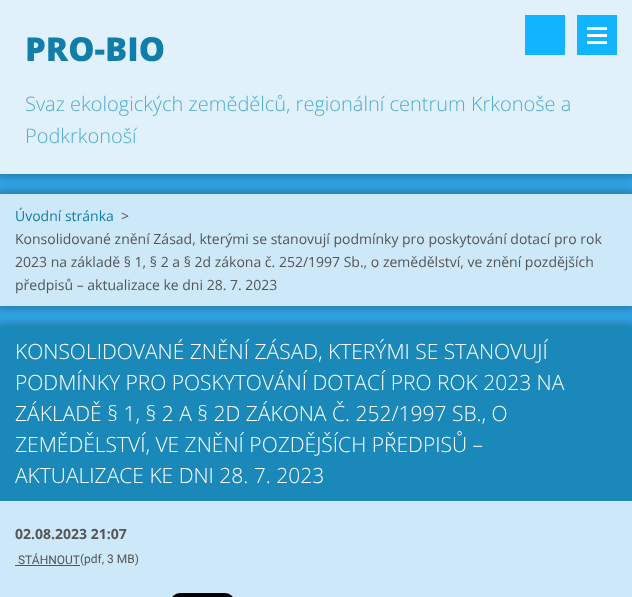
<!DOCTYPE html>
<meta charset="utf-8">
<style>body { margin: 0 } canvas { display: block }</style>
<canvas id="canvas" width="632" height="597"></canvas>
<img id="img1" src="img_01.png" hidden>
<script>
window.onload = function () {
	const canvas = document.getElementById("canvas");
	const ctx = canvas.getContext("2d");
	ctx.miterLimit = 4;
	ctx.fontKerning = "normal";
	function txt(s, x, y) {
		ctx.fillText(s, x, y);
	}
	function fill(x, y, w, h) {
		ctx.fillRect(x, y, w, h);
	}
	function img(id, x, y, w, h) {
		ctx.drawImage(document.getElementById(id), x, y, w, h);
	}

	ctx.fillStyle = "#31A4E6";
	fill(0, 0, 632, 597);
	ctx.fillStyle = "rgba(0, 0, 0, 0.25)";
	ctx.filter = "blur(4.5px)";
	ctx.beginPath();
	ctx.rect(-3, -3, 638, 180);
	ctx.fill();
	ctx.filter = "none";
	ctx.fillStyle = "#E0F1FB";
	fill(0, 0, 632, 174);
	ctx.fillStyle = "#13B4FF";
	fill(525, 15, 40, 40);
	fill(577, 15, 40, 40);
	ctx.fillStyle = "#FFFFFF";
	fill(587, 27, 20, 3);
	fill(587, 34, 20, 3);
	fill(587, 41, 20, 3);
	ctx.fillStyle = "rgba(0, 0, 0, 0.25)";
	ctx.filter = "blur(4.5px)";
	ctx.beginPath();
	ctx.rect(-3, 191, 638, 118);
	ctx.fill();
	ctx.filter = "none";
	ctx.fillStyle = "#CCE8F9";
	fill(0, 194, 632, 112);
	ctx.fillStyle = "rgba(0, 0, 0, 0.25)";
	ctx.filter = "blur(4.5px)";
	ctx.beginPath();
	ctx.rect(-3, 323, 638, 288);
	ctx.fill();
	ctx.filter = "none";
	ctx.fillStyle = "#1A89BA";
	fill(0, 326, 632, 175);
	ctx.fillStyle = "#CCE8F9";
	fill(0, 501, 632, 96);
	ctx.fillStyle = "#555555";
	fill(15, 565, 65, 1);
	img("img1", 172, 593, 61, 4);
	ctx.font = "800 33px Open Sans";
	ctx.fillStyle = "#107EA8";
	txt("PRO-BIO", 25, 61);
	ctx.font = "300 20px Open Sans";
	ctx.fillStyle = "#50ACCF";
	txt("Svaz ekologických zemědělců, regionální centrum Krkonoše a", 25, 111);
	txt("Podkrkonoší", 25, 143);
	ctx.font = "14px Open Sans";
	ctx.fillStyle = "#107EA8";
	txt("Úvodní stránka", 15, 221);
	ctx.fillStyle = "#555555";
	txt(">", 121, 221);
	txt("Konsolidované znění Zásad, kterými se stanovují podmínky pro poskytování dotací pro rok", 15, 244);
	txt("2023 na základě § 1, § 2 a § 2d zákona č. 252/1997 Sb., o zemědělství, ve znění pozdějších", 15, 267);
	txt("předpisů – aktualizace ke dni 28. 7. 2023", 15, 290);
	ctx.font = "300 21px Open Sans";
	ctx.fillStyle = "#FFFFFF";
	txt("KONSOLIDOVANÉ ZNĚNÍ ZÁSAD, KTERÝMI SE STANOVUJÍ", 15, 359);
	txt("PODMÍNKY PRO POSKYTOVÁNÍ DOTACÍ PRO ROK 2023 NA", 15, 390);
	txt("ZÁKLADĚ § 1, § 2 A § 2D ZÁKONA Č. 252/1997 SB., O", 15, 421);
	txt("ZEMĚDĚLSTVÍ, VE ZNĚNÍ POZDĚJŠÍCH PŘEDPISŮ –", 15, 452);
	txt("AKTUALIZACE KE DNI 28. 7. 2023", 15, 483);
	ctx.font = "bold 14px Open Sans";
	ctx.fillStyle = "#555555";
	txt("02.08.2023 21:07", 15, 539);
	ctx.font = "12px Roboto";
	txt("STÁHNOUT", 18, 564);
	txt("(pdf, 3 MB)", 80, 563);
};
</script>
